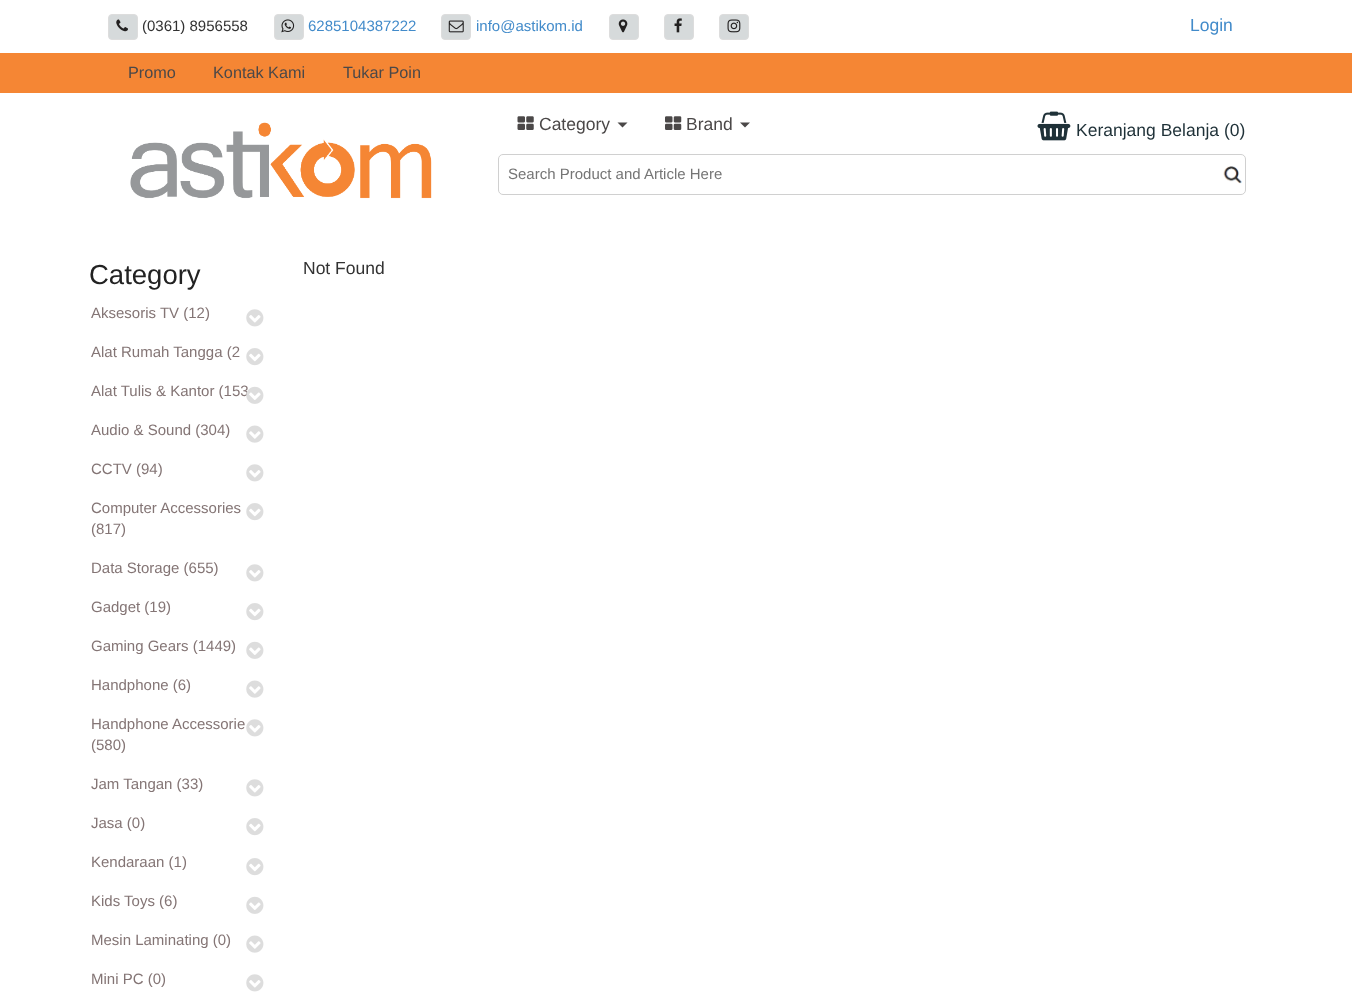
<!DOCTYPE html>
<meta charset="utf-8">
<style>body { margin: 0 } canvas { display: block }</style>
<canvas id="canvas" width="1352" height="993"></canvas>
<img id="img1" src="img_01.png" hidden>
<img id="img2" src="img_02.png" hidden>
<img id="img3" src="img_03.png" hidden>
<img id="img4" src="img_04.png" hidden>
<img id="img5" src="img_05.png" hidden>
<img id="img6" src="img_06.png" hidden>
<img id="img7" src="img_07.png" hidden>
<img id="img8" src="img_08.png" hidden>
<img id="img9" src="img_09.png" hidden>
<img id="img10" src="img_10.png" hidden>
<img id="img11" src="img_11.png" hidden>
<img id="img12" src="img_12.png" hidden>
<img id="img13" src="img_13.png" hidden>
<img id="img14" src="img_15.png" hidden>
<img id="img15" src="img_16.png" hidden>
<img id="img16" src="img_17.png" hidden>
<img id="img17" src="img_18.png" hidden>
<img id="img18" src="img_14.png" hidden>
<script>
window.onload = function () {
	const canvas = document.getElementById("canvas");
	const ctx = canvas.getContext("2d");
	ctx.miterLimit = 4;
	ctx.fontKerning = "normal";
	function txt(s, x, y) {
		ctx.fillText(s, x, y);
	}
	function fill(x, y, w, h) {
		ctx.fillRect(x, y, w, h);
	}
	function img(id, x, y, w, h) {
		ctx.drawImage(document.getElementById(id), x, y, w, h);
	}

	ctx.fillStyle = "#FFFFFF";
	fill(0, 0, 1352, 993);
	ctx.fillStyle = "#D6DADB";
	ctx.beginPath();
	ctx.roundRect(108.5, 14.5, 29, 25, 3.5);
	ctx.fill();
	ctx.strokeStyle = "#DDDDDD";
	ctx.stroke();
	img("img1", 116, 19, 12, 13);
	ctx.beginPath();
	ctx.roundRect(274.5, 14.5, 29, 25, 3.5);
	ctx.fill();
	ctx.stroke();
	img("img2", 281, 19, 14, 14);
	ctx.beginPath();
	ctx.roundRect(441.5, 14.5, 29, 25, 3.5);
	ctx.fill();
	ctx.stroke();
	img("img3", 448, 20, 16, 13);
	ctx.beginPath();
	ctx.roundRect(609.5, 14.5, 29, 25, 3.5);
	ctx.fill();
	ctx.stroke();
	img("img4", 618, 19, 10, 14);
	ctx.beginPath();
	ctx.roundRect(664.5, 14.5, 29, 25, 3.5);
	ctx.fill();
	ctx.stroke();
	img("img5", 674, 18, 8, 15);
	ctx.beginPath();
	ctx.roundRect(719.5, 14.5, 29, 25, 3.5);
	ctx.fill();
	ctx.stroke();
	img("img6", 727, 19, 14, 14);
	ctx.fillStyle = "#F58634";
	fill(0, 53, 1352, 40);
	img("img7", 130, 122, 302, 77);
	img("img8", 517, 116, 17, 14);
	ctx.fillStyle = "#4B4848";
	ctx.beginPath();
	ctx.moveTo(617.5, 122.5);
	ctx.lineTo(627.5, 122.5);
	ctx.lineTo(622.5, 127.5);
	ctx.closePath();
	ctx.fill();
	img("img9", 665, 116, 17, 14);
	ctx.beginPath();
	ctx.moveTo(740, 122.5);
	ctx.lineTo(750, 122.5);
	ctx.lineTo(745, 127.5);
	ctx.closePath();
	ctx.fill();
	img("img10", 1037, 111, 34, 30);
	img("img11", 1223, 166, 19, 18);
	ctx.beginPath();
	ctx.roundRect(498.5, 154.5, 747, 40, 4.5);
	ctx.strokeStyle = "#D0D0D0";
	ctx.stroke();
	img("img12", 246, 309, 18, 18);
	img("img13", 246, 348, 18, 18);
	img("img14", 246, 425, 18, 18);
	img("img12", 246, 464, 18, 18);
	img("img15", 246, 503, 18, 18);
	img("img12", 246, 564, 18, 18);
	img("img15", 246, 603, 18, 18);
	img("img16", 246, 641, 18, 18);
	img("img14", 246, 680, 18, 18);
	img("img17", 246, 719, 18, 18);
	img("img12", 246, 779, 18, 18);
	img("img15", 246, 818, 18, 18);
	img("img15", 246, 858, 18, 18);
	img("img16", 246, 896, 18, 18);
	img("img14", 246, 935, 18, 18);
	img("img12", 246, 974, 18, 18);
	ctx.font = "15px Liberation Sans";
	ctx.fillStyle = "#323232";
	txt("(0361) 8956558", 142, 31);
	ctx.fillStyle = "#428BCA";
	txt("6285104387222", 308, 31);
	txt("info@astikom.id", 476, 31);
	ctx.font = "17.5px Liberation Sans";
	txt("Login", 1190, 31);
	ctx.font = "16.25px Liberation Sans";
	ctx.fillStyle = "#4B4848";
	txt("Promo", 128, 78);
	txt("Kontak Kami", 213, 78);
	txt("Tukar Poin", 343, 78);
	ctx.font = "17.5px Liberation Sans";
	txt("Category", 539, 130);
	txt("Brand", 686, 130);
	ctx.fillStyle = "#1F3138";
	txt("Keranjang Belanja (0)", 1076, 136);
	ctx.font = "15px Liberation Sans";
	ctx.fillStyle = "#757575";
	txt("Search Product and Article Here", 508, 179);
	ctx.font = "27.5px Liberation Sans";
	ctx.fillStyle = "#222222";
	txt("Category", 89, 284);
	ctx.font = "15px Liberation Sans";
	ctx.fillStyle = "#847575";
	txt("Aksesoris TV (12)", 91, 318);
	txt("Alat Rumah Tangga (2", 91, 357);
	txt("Alat Tulis & Kantor (153", 91, 396);
	img("img18", 246, 386, 18, 18);
	txt("Audio & Sound (304)", 91, 435);
	txt("CCTV (94)", 91, 474);
	txt("Computer Accessories", 91, 513);
	txt("(817)", 91, 534);
	txt("Data Storage (655)", 91, 573);
	txt("Gadget (19)", 91, 612);
	txt("Gaming Gears (1449)", 91, 651);
	txt("Handphone (6)", 91, 690);
	txt("Handphone Accessorie", 91, 729);
	txt("(580)", 91, 750);
	txt("Jam Tangan (33)", 91, 789);
	txt("Jasa (0)", 91, 828);
	txt("Kendaraan (1)", 91, 867);
	txt("Kids Toys (6)", 91, 906);
	txt("Mesin Laminating (0)", 91, 945);
	txt("Mini PC (0)", 91, 984);
	ctx.font = "17.5px Liberation Sans";
	ctx.fillStyle = "#323232";
	txt("Not Found", 303, 274);
};
</script>
